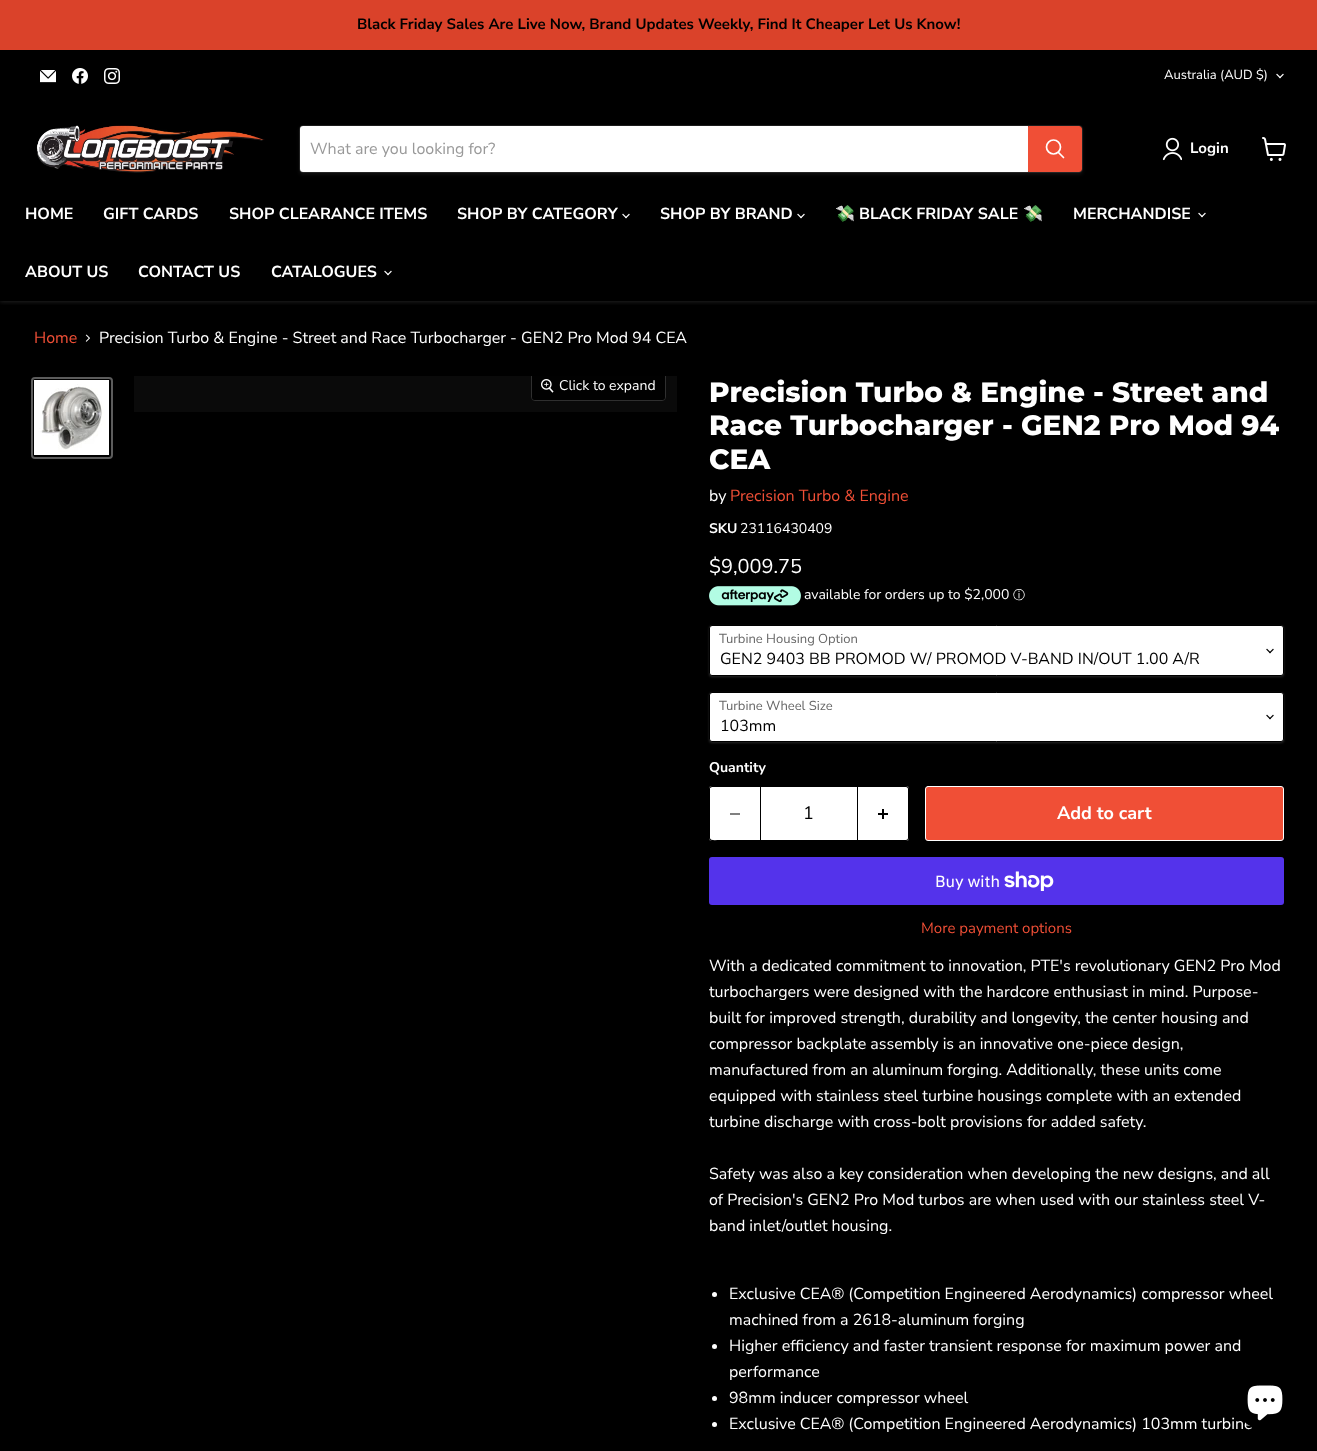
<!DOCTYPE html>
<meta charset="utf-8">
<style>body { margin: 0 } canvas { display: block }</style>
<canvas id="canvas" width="1317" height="1451"></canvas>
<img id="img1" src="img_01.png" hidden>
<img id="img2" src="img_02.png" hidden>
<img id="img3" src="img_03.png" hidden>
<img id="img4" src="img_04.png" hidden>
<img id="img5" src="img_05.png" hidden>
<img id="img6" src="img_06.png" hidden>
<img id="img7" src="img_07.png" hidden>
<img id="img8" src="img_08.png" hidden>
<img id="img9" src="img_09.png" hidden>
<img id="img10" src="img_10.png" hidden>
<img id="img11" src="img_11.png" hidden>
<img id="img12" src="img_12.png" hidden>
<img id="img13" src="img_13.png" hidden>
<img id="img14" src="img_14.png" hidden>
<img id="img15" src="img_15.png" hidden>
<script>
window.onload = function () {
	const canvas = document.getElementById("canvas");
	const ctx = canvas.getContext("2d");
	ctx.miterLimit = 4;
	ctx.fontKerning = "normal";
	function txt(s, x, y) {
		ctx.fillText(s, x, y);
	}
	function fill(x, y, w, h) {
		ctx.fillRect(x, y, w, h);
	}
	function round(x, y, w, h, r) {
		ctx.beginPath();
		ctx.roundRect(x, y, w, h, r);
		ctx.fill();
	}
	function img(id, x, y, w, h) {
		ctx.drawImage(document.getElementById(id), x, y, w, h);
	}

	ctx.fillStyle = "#000000";
	fill(0, 0, 1317, 1451);
	ctx.fillStyle = "#DA422A";
	fill(0, 0, 1317, 50);
	ctx.save();
	ctx.beginPath();
	ctx.rect(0, 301, 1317, 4);
	ctx.clip();
	ctx.fillStyle = "rgba(128, 128, 128, 0.25)";
	ctx.filter = "blur(2px)";
	ctx.beginPath();
	ctx.rect(0, 104, 1317, 198);
	ctx.fill();
	ctx.filter = "none";
	ctx.restore();
	ctx.fillStyle = "#000000";
	fill(0, 101, 1317, 2);
	img("img1", 40, 70, 16, 13);
	img("img2", 72, 68, 16, 16);
	img("img3", 104, 68, 16, 16);
	img("img4", 1276, 73, 8, 6);
	img("img5", 36, 125, 229, 48);
	ctx.fillStyle = "rgba(128, 128, 128, 0.11)";
	ctx.filter = "blur(1.5px)";
	ctx.beginPath();
	ctx.roundRect(299, 127, 784, 48, 4);
	ctx.fill();
	ctx.filter = "none";
	ctx.beginPath();
	ctx.roundRect(299.5, 125.5, 783, 47, 3.5);
	ctx.strokeStyle = "rgba(128, 128, 128, 0.2)";
	ctx.stroke();
	ctx.fillStyle = "#FFFFFF";
	ctx.beginPath();
	ctx.roundRect(300, 126, 728, 46, [3, 0, 0, 3]);
	ctx.fill();
	ctx.fillStyle = "#F04F36";
	ctx.beginPath();
	ctx.roundRect(1028.5, 126.5, 53, 45, [0, 2.5, 2.5, 0]);
	ctx.fill();
	ctx.strokeStyle = "#F04F36";
	ctx.stroke();
	ctx.beginPath();
	ctx.moveTo(1063.5, 157.5);
	ctx.lineTo(1058.5, 152.5);
	ctx.strokeStyle = "#FFFFFF";
	ctx.lineWidth = 1.7;
	ctx.lineCap = "round";
	ctx.stroke();
	ctx.beginPath();
	ctx.arc(1053.5, 147, 7, 0, Math.PI * 2);
	ctx.stroke();
	img("img6", 1162, 137, 20, 24);
	img("img7", 1262, 137, 24, 24);
	img("img4", 622, 213, 8, 6);
	img("img4", 797, 213, 8, 6);
	img("img4", 1198, 212, 8, 6);
	img("img4", 384, 270, 8, 6);
	img("img8", 85, 334, 5, 8);
	ctx.beginPath();
	ctx.roundRect(32, 378, 80, 80, 3);
	ctx.strokeStyle = "#5C5C5C";
	ctx.lineWidth = 2;
	ctx.stroke();
	img("img9", 34, 380, 75, 75);
	ctx.fillStyle = "#0A0A0A";
	fill(134, 376, 543, 36);
	ctx.save();
	ctx.beginPath();
	ctx.rect(134, 376, 543, 36);
	ctx.clip();
	ctx.beginPath();
	ctx.roundRect(531.5, 371.5, 134, 29, 3.5);
	ctx.strokeStyle = "#2F2F2F";
	ctx.lineWidth = 1;
	ctx.stroke();
	ctx.restore();
	ctx.fillStyle = "rgba(0, 0, 0, 0.9)";
	ctx.beginPath();
	ctx.roundRect(532, 376, 133, 24, [0, 0, 3, 3]);
	ctx.fill();
	img("img10", 541, 379, 13, 14);
	img("img11", 709, 586, 92, 20);
	ctx.fillStyle = "rgba(255, 255, 255, 0.15)";
	ctx.filter = "blur(1px)";
	ctx.beginPath();
	ctx.roundRect(709, 626, 575, 51, 3);
	ctx.fill();
	ctx.filter = "none";
	ctx.fillStyle = "#FFFFFF";
	ctx.beginPath();
	ctx.roundRect(709.5, 625.5, 574, 50, 2.5);
	ctx.fill();
	ctx.strokeStyle = "#000000";
	ctx.lineWidth = 1;
	ctx.stroke();
	img("img12", 1266, 648, 8, 6);
	ctx.fillStyle = "rgba(255, 255, 255, 0.15)";
	ctx.filter = "blur(1px)";
	ctx.beginPath();
	ctx.roundRect(709, 693, 575, 50, 3);
	ctx.fill();
	ctx.filter = "none";
	ctx.fillStyle = "#FFFFFF";
	ctx.beginPath();
	ctx.roundRect(709.5, 692.5, 574, 49, 2.5);
	ctx.fill();
	ctx.stroke();
	img("img12", 1266, 714, 8, 6);
	ctx.beginPath();
	ctx.roundRect(709, 786, 51, 55, [3, 0, 0, 3]);
	ctx.fill();
	ctx.fillStyle = "#000000";
	ctx.beginPath();
	ctx.moveTo(712, 786);
	ctx.lineTo(760, 786);
	ctx.lineTo(760, 841);
	ctx.lineTo(712, 841);
	ctx.bezierCurveTo(710, 841, 709, 840, 709, 838);
	ctx.lineTo(709, 789);
	ctx.bezierCurveTo(709, 787, 710, 786, 712, 786);
	ctx.closePath();
	ctx.moveTo(712, 787);
	ctx.lineTo(760, 787);
	ctx.lineTo(760, 840);
	ctx.lineTo(720, 840);
	ctx.bezierCurveTo(716, 840, 710, 841, 710, 838);
	ctx.lineTo(710, 788);
	ctx.closePath();
	ctx.fill("evenodd");
	ctx.fillStyle = "#808080";
	fill(730, 813, 10, 2);
	ctx.fillStyle = "#FFFFFF";
	fill(761, 787, 96, 53);
	ctx.beginPath();
	ctx.roundRect(858, 786, 51, 55, [0, 3, 3, 0]);
	ctx.fill();
	ctx.fillStyle = "#000000";
	ctx.beginPath();
	ctx.moveTo(858, 786);
	ctx.lineTo(906, 786);
	ctx.bezierCurveTo(908, 786, 909, 787, 909, 789);
	ctx.lineTo(909, 838);
	ctx.bezierCurveTo(909, 840, 908, 841, 906, 841);
	ctx.lineTo(858, 841);
	ctx.closePath();
	ctx.moveTo(858, 787);
	ctx.lineTo(906, 787);
	ctx.bezierCurveTo(907, 787, 908, 788, 908, 789);
	ctx.lineTo(908, 838);
	ctx.bezierCurveTo(908, 839, 907, 840, 906, 840);
	ctx.lineTo(858, 840);
	ctx.closePath();
	ctx.fill("evenodd");
	img("img13", 878, 809, 10, 10);
	ctx.fillStyle = "#F04F36";
	ctx.beginPath();
	ctx.roundRect(925.5, 786.5, 358, 54, 2.5);
	ctx.fill();
	ctx.strokeStyle = "#FFFFFF";
	ctx.stroke();
	ctx.fillStyle = "#5433EB";
	round(709, 857, 575, 48, 3);
	img("img14", 1004, 871, 50, 20);
	ctx.fillStyle = "#FFFFFF";
	ctx.beginPath();
	ctx.arc(714.5, 1294.5, 2.5, 0, Math.PI * 2);
	ctx.fill();
	ctx.beginPath();
	ctx.arc(714.5, 1346.5, 2.5, 0, Math.PI * 2);
	ctx.fill();
	ctx.beginPath();
	ctx.arc(714.5, 1398.5, 2.5, 0, Math.PI * 2);
	ctx.fill();
	ctx.beginPath();
	ctx.arc(714.5, 1424.5, 2.5, 0, Math.PI * 2);
	ctx.fill();
	ctx.font = "bold 15px Nunito Sans";
	ctx.fillStyle = "#000000";
	txt("Black Friday Sales Are Live Now, Brand Updates Weekly, Find It Cheaper Let Us Know!", 357, 29);
	ctx.font = "13px Nunito Sans";
	ctx.fillStyle = "#FFFFFF";
	txt("Australia (AUD $)", 1164, 79);
	ctx.font = "16px Nunito Sans";
	ctx.fillStyle = "#999999";
	txt("What are you looking for?", 310, 154);
	ctx.font = "bold 15px Nunito Sans";
	ctx.fillStyle = "#FFFFFF";
	txt("Login", 1190, 153);
	ctx.font = "bold 16px Nunito Sans";
	txt("HOME", 25, 219);
	txt("GIFT CARDS", 103, 219);
	txt("SHOP CLEARANCE ITEMS", 229, 219);
	txt("SHOP BY CATEGORY", 457, 219);
	txt("SHOP BY BRAND", 660, 219);
	ctx.font = "bold 16px Noto Color Emoji";
	txt("💸", 835, 219);
	ctx.font = "bold 16px Nunito Sans";
	txt("BLACK FRIDAY SALE", 859, 219);
	ctx.font = "bold 16px Noto Color Emoji";
	txt("💸", 1023, 219);
	ctx.font = "bold 16px Nunito Sans";
	txt("MERCHANDISE", 1073, 219);
	txt("ABOUT US", 25, 277);
	txt("CONTACT US", 138, 277);
	txt("CATALOGUES", 271, 277);
	ctx.font = "16px Nunito Sans";
	ctx.fillStyle = "#F04F36";
	txt("Home", 34, 343);
	ctx.fillStyle = "#FFFFFF";
	txt("Precision Turbo & Engine - Street and Race Turbocharger - GEN2 Pro Mod 94 CEA", 99, 343);
	ctx.font = "14px Nunito Sans";
	txt("Click to expand", 559, 390);
	ctx.font = "800 28px Montserrat";
	txt("Precision Turbo & Engine - Street and", 709, 402);
	txt("Race Turbocharger - GEN2 Pro Mod 94", 709, 435);
	txt("CEA", 709, 469);
	ctx.font = "16px Nunito Sans";
	txt("by", 709, 501);
	ctx.fillStyle = "#F04F36";
	txt("Precision Turbo & Engine", 730, 501);
	ctx.font = "bold 14px Nunito Sans";
	ctx.fillStyle = "#FFFFFF";
	txt("SKU", 709, 533);
	ctx.font = "14px Nunito Sans";
	txt("23116430409", 740, 533);
	ctx.font = "20px Nunito Sans";
	txt("$9,009.75", 709, 573);
	ctx.font = "14px Nunito Sans";
	txt("available for orders up to $2,000", 804, 599);
	ctx.font = "500 12px WenQuanYi Zen Hei";
	txt("ⓘ", 1013, 599);
	ctx.font = "13px Nunito Sans";
	ctx.fillStyle = "#666666";
	txt("Turbine Housing Option", 719, 643);
	ctx.font = "16px Nunito Sans";
	ctx.fillStyle = "#000000";
	txt("GEN2 9403 BB PROMOD W/ PROMOD V-BAND IN/OUT 1.00 A/R", 720, 664);
	ctx.font = "13px Nunito Sans";
	ctx.fillStyle = "#666666";
	txt("Turbine Wheel Size", 719, 710);
	ctx.font = "16px Nunito Sans";
	ctx.fillStyle = "#000000";
	txt("103mm", 720, 731);
	ctx.font = "bold 14px Nunito Sans";
	ctx.fillStyle = "#FFFFFF";
	txt("Quantity", 709, 772);
	ctx.font = "18px Nunito Sans";
	ctx.fillStyle = "#000000";
	txt("1", 803, 819);
	ctx.font = "bold 18px Nunito Sans";
	ctx.fillStyle = "#FFFFFF";
	txt("Add to cart", 1057, 819);
	ctx.font = "16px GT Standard";
	txt("Buy with", 935, 887);
	ctx.font = "15px Nunito Sans";
	ctx.fillStyle = "#F04F36";
	txt("More payment options", 921, 933);
	ctx.font = "16px Nunito Sans";
	ctx.fillStyle = "#FFFFFF";
	txt("With a dedicated commitment to innovation, PTE's revolutionary GEN2 Pro Mod", 709, 971);
	txt("turbochargers were designed with the hardcore enthusiast in mind. Purpose-", 709, 997);
	txt("built for improved strength, durability and longevity, the center housing and", 709, 1023);
	txt("compressor backplate assembly is an innovative one-piece design,", 709, 1049);
	txt("manufactured from an aluminum forging. Additionally, these units come", 709, 1075);
	txt("equipped with stainless steel turbine housings complete with an extended", 709, 1101);
	txt("turbine discharge with cross-bolt provisions for added safety.", 709, 1127);
	txt("Safety was also a key consideration when developing the new designs, and all", 709, 1179);
	txt("of Precision's GEN2 Pro Mod turbos are when used with our stainless steel V-", 709, 1205);
	txt("band inlet/outlet housing.", 709, 1231);
	txt("Exclusive CEA® (Competition Engineered Aerodynamics) compressor wheel", 729, 1299);
	txt("machined from a 2618-aluminum forging", 729, 1325);
	txt("Higher efficiency and faster transient response for maximum power and", 729, 1351);
	txt("performance", 729, 1377);
	txt("98mm inducer compressor wheel", 729, 1403);
	txt("Exclusive CEA® (Competition Engineered Aerodynamics) 103mm turbine", 729, 1429);
	ctx.fillStyle = "#000000";
	ctx.beginPath();
	ctx.arc(1265, 1400, 30, 0, Math.PI * 2);
	ctx.fill();
	img("img15", 1247, 1385, 36, 36);
};
</script>
